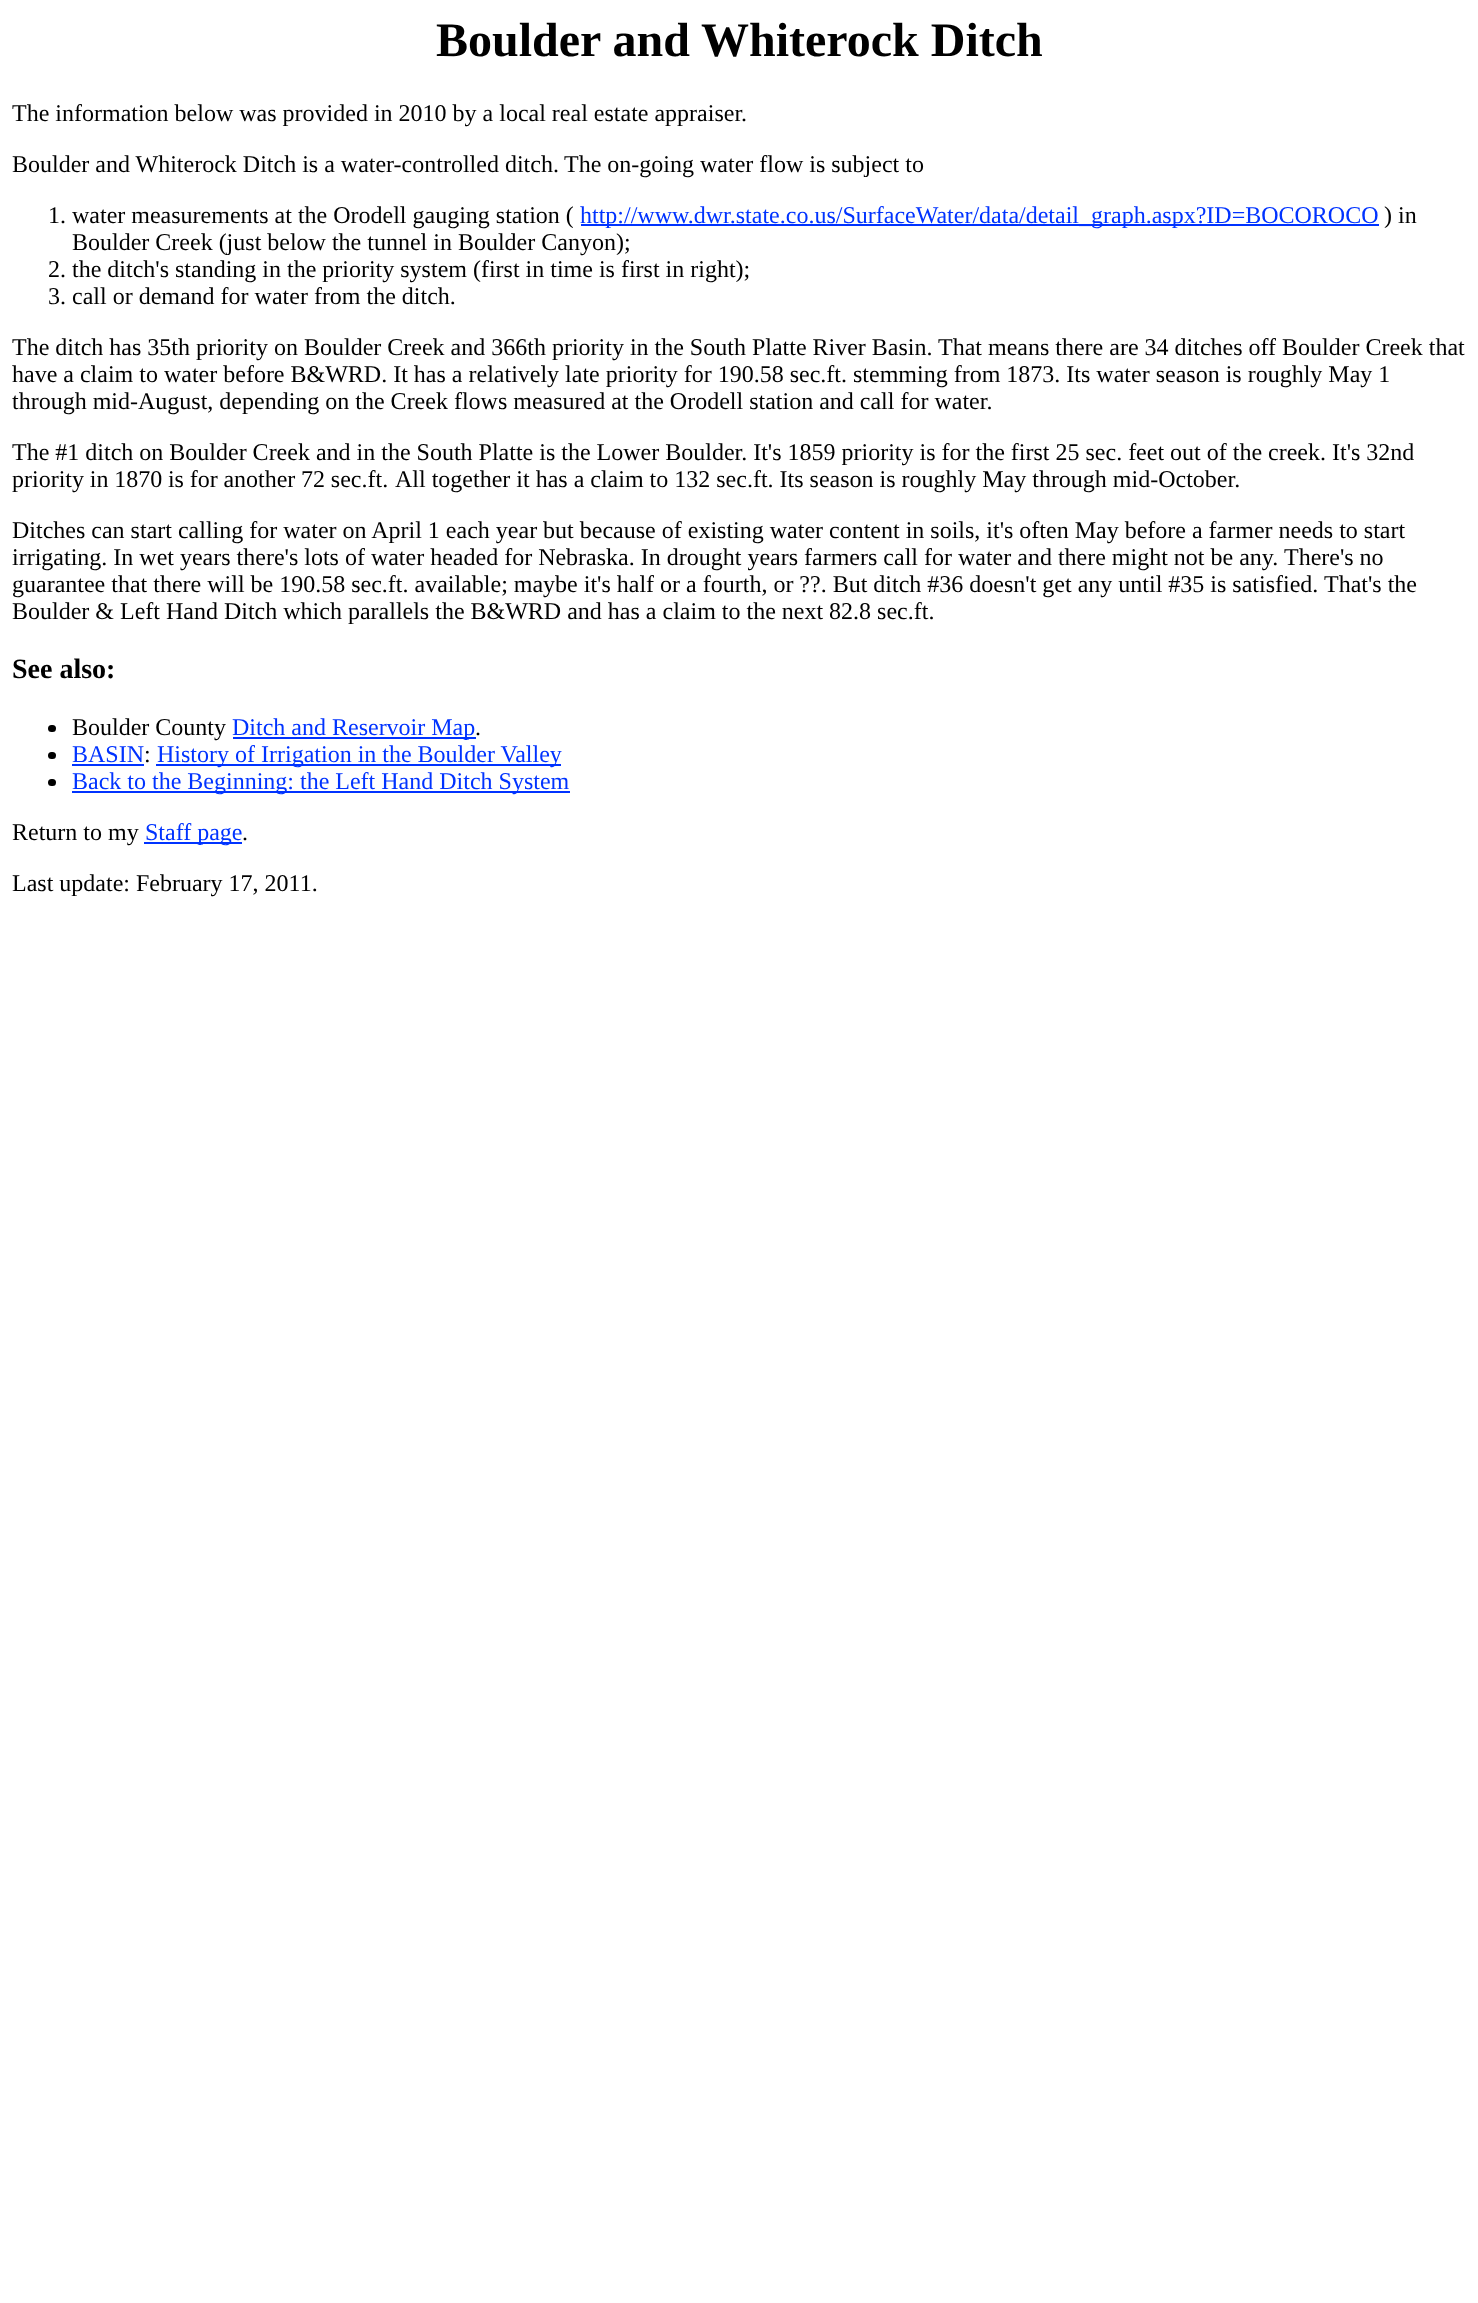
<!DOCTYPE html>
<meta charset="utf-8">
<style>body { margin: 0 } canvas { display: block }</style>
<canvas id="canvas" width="1478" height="2303"></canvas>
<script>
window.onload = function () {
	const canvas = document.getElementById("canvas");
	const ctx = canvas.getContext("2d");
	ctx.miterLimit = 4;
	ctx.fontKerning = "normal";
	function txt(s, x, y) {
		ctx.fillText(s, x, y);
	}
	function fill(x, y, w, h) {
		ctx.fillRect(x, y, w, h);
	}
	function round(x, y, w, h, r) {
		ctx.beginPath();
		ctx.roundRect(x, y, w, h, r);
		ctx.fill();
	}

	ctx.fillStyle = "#FFFFFF";
	fill(0, 0, 1478, 2303);
	ctx.fillStyle = "#0033FF";
	fill(581, 224, 798, 2);
	ctx.fillStyle = "#000000";
	round(48, 725, 8, 7, 3.5);
	ctx.fillStyle = "#0033FF";
	fill(233, 737, 243, 2);
	ctx.fillStyle = "#000000";
	round(48, 752, 8, 7, 3.5);
	ctx.fillStyle = "#0033FF";
	fill(72, 764, 72, 2);
	fill(156, 764, 405, 2);
	ctx.fillStyle = "#000000";
	round(48, 779, 8, 7, 3.5);
	ctx.fillStyle = "#0033FF";
	fill(72, 791, 498, 2);
	fill(144, 842, 98, 2);
	ctx.font = "bold 48px Liberation Serif";
	ctx.fillStyle = "#000000";
	txt("Boulder and Whiterock Ditch", 436, 56);
	ctx.font = "24px Liberation Serif";
	txt("The information below was provided in 2010 by a local real estate appraiser.", 12, 121);
	txt("Boulder and Whiterock Ditch is a water-controlled ditch.", 12, 172);
	txt("The on-going water flow is subject to", 564, 172);
	txt("1. water measurements at the Orodell gauging station (", 48, 223);
	ctx.fillStyle = "#0033FF";
	txt("http://www.dwr.state.co.us/SurfaceWater/data/detail_graph.aspx?ID=BOCOROCO", 580, 223);
	ctx.fillStyle = "#000000";
	txt(") in", 1384, 223);
	txt("Boulder Creek (just below the tunnel in Boulder Canyon);", 72, 250);
	txt("2. the ditch's standing in the priority system (first in time is first in right);", 48, 277);
	txt("3. call or demand for water from the ditch.", 48, 304);
	txt("The ditch has 35th priority on Boulder Creek and 366th priority in the South Platte River Basin.", 12, 355);
	txt("That means there are 34 ditches off Boulder Creek that", 938, 355);
	txt("have a claim to water before B&WRD. It has a relatively late priority for 190.58 sec.ft. stemming from 1873. Its water season is roughly May 1", 12, 382);
	txt("through mid-August, depending on the Creek flows measured at the Orodell station and call for water.", 12, 409);
	txt("The #1 ditch on Boulder Creek and in the South Platte is the Lower Boulder. It's 1859 priority is for the first 25 sec. feet out of the creek. It's 32nd", 12, 460);
	ctx.wordSpacing = "-0.25px";
	txt("priority in 1870 is for another 72 sec.ft.", 12, 487);
	ctx.wordSpacing = "0px";
	txt("All together it has a claim to 132 sec.ft. Its season is roughly May through mid-October.", 395, 487);
	txt("Ditches can start calling for water on April 1 each year but because of existing water content in soils, it's often May before a farmer needs to start", 12, 538);
	txt("irrigating. In wet years there's lots of water headed for Nebraska. In drought years farmers call for water and there might not be any.", 12, 565);
	txt("There's no", 1284, 565);
	txt("guarantee that there will be 190.58 sec.ft. available; maybe it's half or a fourth, or ??. But ditch #36 doesn't get any until #35 is satisfied.", 12, 592);
	txt("That's the", 1324, 592);
	txt("Boulder & Left Hand Ditch which parallels the B&WRD and has a claim to the next 82.8 sec.ft.", 12, 619);
	ctx.font = "bold 28px Liberation Serif";
	txt("See also:", 12, 678);
	ctx.font = "24px Liberation Serif";
	txt("Boulder County", 72, 735);
	ctx.fillStyle = "#0033FF";
	txt("Ditch and Reservoir Map", 232, 735);
	ctx.fillStyle = "#000000";
	txt(".", 475, 735);
	ctx.fillStyle = "#0033FF";
	txt("BASIN", 72, 762);
	ctx.fillStyle = "#000000";
	txt(":", 144, 762);
	ctx.fillStyle = "#0033FF";
	txt("History of Irrigation in the Boulder Valley", 157, 762);
	txt("Back to the Beginning: the Left Hand Ditch System", 72, 789);
	ctx.fillStyle = "#000000";
	txt("Return to my", 12, 840);
	ctx.fillStyle = "#0033FF";
	txt("Staff page", 145, 840);
	ctx.fillStyle = "#000000";
	txt(".", 242, 840);
	txt("Last update: February 17, 2011.", 12, 891);
};
</script>
